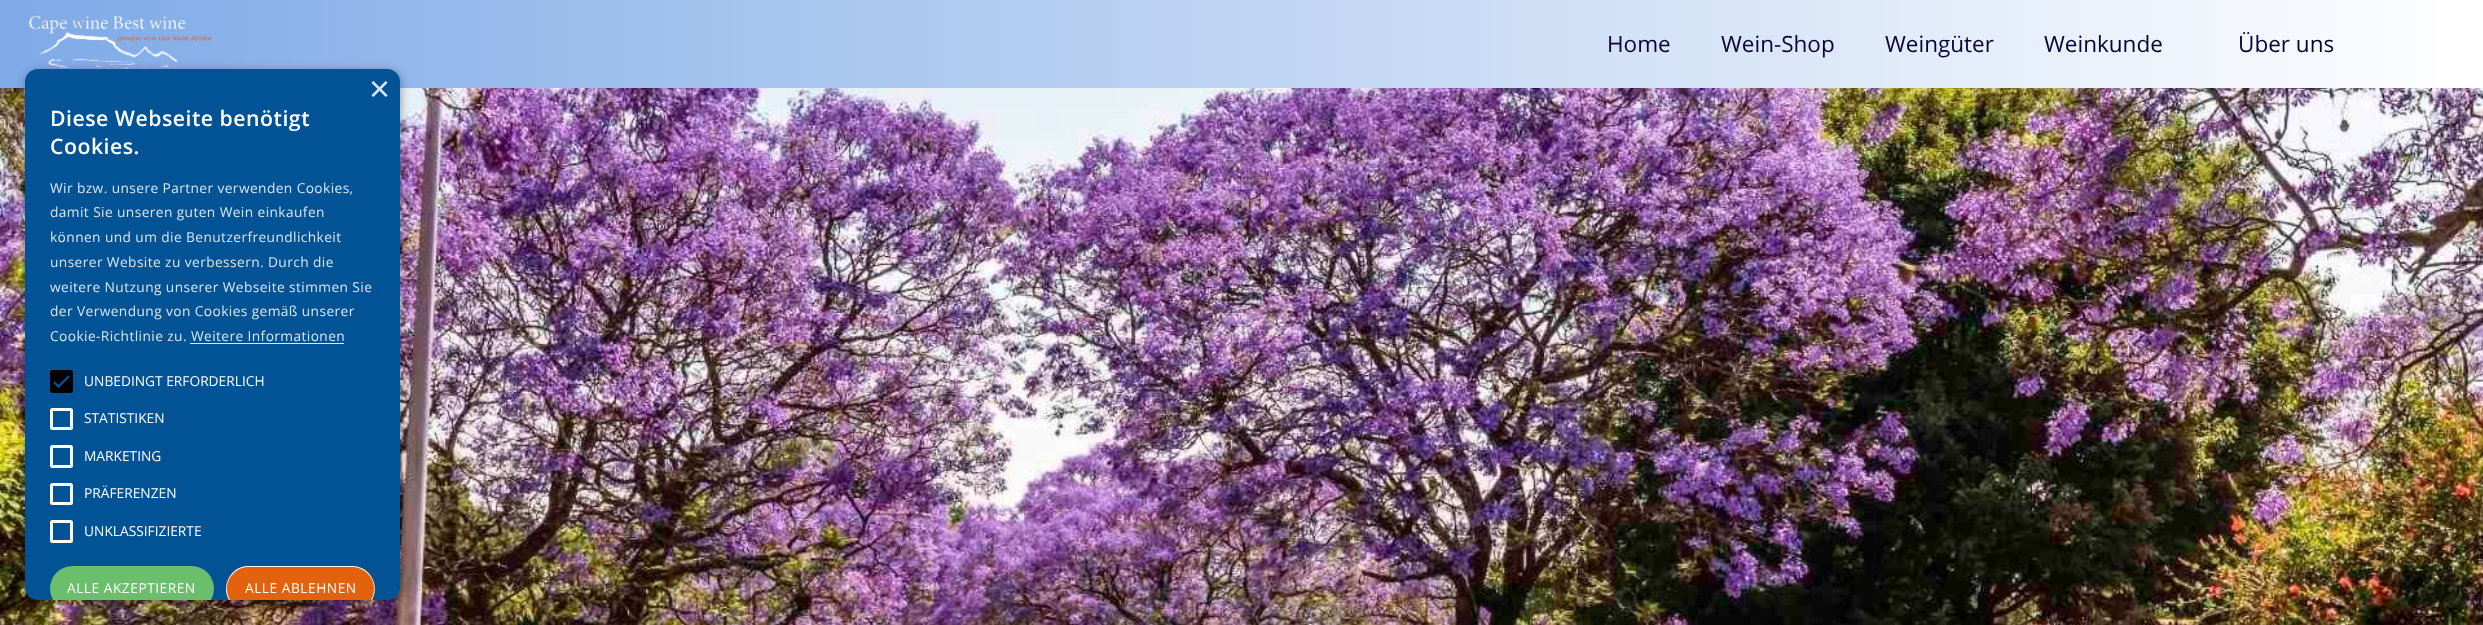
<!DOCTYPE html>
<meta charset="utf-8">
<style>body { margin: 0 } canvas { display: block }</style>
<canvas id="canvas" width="2483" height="625"></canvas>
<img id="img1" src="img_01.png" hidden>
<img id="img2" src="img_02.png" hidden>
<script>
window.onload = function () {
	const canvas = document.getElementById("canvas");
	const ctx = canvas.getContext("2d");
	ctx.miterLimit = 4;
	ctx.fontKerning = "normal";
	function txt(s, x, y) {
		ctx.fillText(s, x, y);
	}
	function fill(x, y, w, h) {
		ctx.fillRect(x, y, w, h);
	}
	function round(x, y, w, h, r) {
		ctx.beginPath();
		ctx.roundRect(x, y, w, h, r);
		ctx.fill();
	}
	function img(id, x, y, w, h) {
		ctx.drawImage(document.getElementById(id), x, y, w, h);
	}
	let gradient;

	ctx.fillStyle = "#FFFFFF";
	fill(0, 0, 2483, 625);
	gradient = ctx.createLinearGradient(0, 44, 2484, 44);
	gradient.addColorStop(0, "#7EAAE7");
	gradient.addColorStop(1, "#FFFFFF");
	ctx.fillStyle = gradient;
	fill(0, 0, 2436, 88);
	img("img1", 28, 15, 184, 54);
	img("img2", 0, 88, 2483, 537);
	ctx.fillStyle = "rgba(0, 0, 0, 0.35)";
	ctx.filter = "blur(5px)";
	ctx.beginPath();
	ctx.roundRect(26, 71, 375, 532, 13);
	ctx.fill();
	ctx.filter = "none";
	ctx.fillStyle = "#025296";
	round(25, 69, 375, 531, 13);
	ctx.fillStyle = "#D9E5EF";
	fill(190, 343, 154, 1);
	ctx.fillStyle = "#000000";
	round(50, 370, 23, 23, 2.5);
	ctx.beginPath();
	ctx.moveTo(54, 382);
	ctx.lineTo(58.5, 386.5);
	ctx.lineTo(69, 376);
	ctx.strokeStyle = "#025296";
	ctx.lineWidth = 2.3;
	ctx.stroke();
	ctx.beginPath();
	ctx.roundRect(51.5, 409.5, 20, 19, 1);
	ctx.strokeStyle = "#FFFFFF";
	ctx.lineWidth = 3;
	ctx.stroke();
	ctx.beginPath();
	ctx.roundRect(51.5, 446.5, 20, 20, 1);
	ctx.stroke();
	ctx.beginPath();
	ctx.roundRect(51.5, 484.5, 20, 19, 1);
	ctx.stroke();
	ctx.beginPath();
	ctx.roundRect(51.5, 521.5, 20, 20, 1);
	ctx.stroke();
	ctx.save();
	ctx.beginPath();
	ctx.roundRect(25, 69, 375, 531, 13);
	ctx.clip();
	ctx.fillStyle = "#6BBE6B";
	round(50, 566, 164, 45, 22.5);
	ctx.fillStyle = "#E2620E";
	round(226, 566, 149, 45, 22.5);
	ctx.restore();
	ctx.fillStyle = "#FFFFFF";
	ctx.beginPath();
	ctx.moveTo(248, 566);
	ctx.bezierCurveTo(231, 566, 221, 586, 229, 600);
	ctx.lineTo(230, 600);
	ctx.bezierCurveTo(228, 597, 227, 593, 227, 588);
	ctx.bezierCurveTo(227, 577, 237, 567, 248, 567);
	ctx.lineTo(352, 567);
	ctx.bezierCurveTo(364, 567, 374, 577, 374, 588);
	ctx.bezierCurveTo(374, 593, 373, 597, 371, 600);
	ctx.lineTo(372, 600);
	ctx.bezierCurveTo(380, 586, 370, 566, 352, 566);
	ctx.closePath();
	ctx.fill();
	ctx.font = "22.5px Open Sans";
	ctx.fillStyle = "#0A0232";
	txt("Home", 1607, 52);
	txt("Wein-Shop", 1721, 52);
	txt("Weingüter", 1885, 52);
	txt("Weinkunde", 2044, 52);
	txt("Über uns", 2238, 52);
	ctx.font = "36px Liberation Sans";
	ctx.fillStyle = "#D9E5EF";
	txt("×", 369, 101);
	ctx.letterSpacing = "0.5px";
	ctx.font = "600 21.25px Open Sans";
	ctx.fillStyle = "#FFFFFF";
	txt("Diese Webseite benötigt", 50, 126);
	txt("Cookies.", 50, 154);
	ctx.letterSpacing = "0.4px";
	ctx.font = "13.75px 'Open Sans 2'";
	ctx.fillStyle = "#D9E5EF";
	txt("Wir bzw. unsere Partner verwenden Cookies,", 50, 193);
	txt("damit Sie unseren guten Wein einkaufen", 50, 217);
	txt("können und um die Benutzerfreundlichkeit", 50, 242);
	txt("unserer Website zu verbessern. Durch die", 50, 267);
	txt("weitere Nutzung unserer Webseite stimmen Sie", 50, 292);
	txt("der Verwendung von Cookies gemäß unserer", 50, 316);
	txt("Cookie-Richtlinie zu. Weitere Informationen", 50, 341);
	ctx.letterSpacing = "0px";
	ctx.fillStyle = "#FFFFFF";
	txt("UNBEDINGT ERFORDERLICH", 84, 386);
	txt("STATISTIKEN", 84, 423);
	txt("MARKETING", 84, 461);
	txt("PRÄFERENZEN", 84, 498);
	txt("UNKLASSIFIZIERTE", 84, 536);
	ctx.letterSpacing = "0.5px";
	txt("ALLE AKZEPTIEREN", 67, 593);
	txt("ALLE ABLEHNEN", 245, 593);
};
</script>
